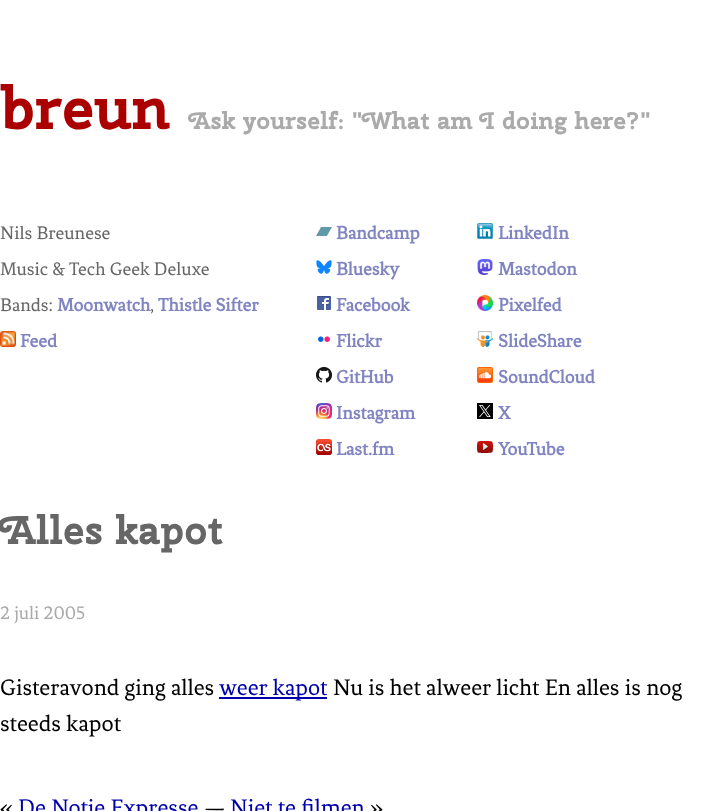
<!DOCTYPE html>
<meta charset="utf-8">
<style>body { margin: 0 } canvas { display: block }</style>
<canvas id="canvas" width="706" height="811"></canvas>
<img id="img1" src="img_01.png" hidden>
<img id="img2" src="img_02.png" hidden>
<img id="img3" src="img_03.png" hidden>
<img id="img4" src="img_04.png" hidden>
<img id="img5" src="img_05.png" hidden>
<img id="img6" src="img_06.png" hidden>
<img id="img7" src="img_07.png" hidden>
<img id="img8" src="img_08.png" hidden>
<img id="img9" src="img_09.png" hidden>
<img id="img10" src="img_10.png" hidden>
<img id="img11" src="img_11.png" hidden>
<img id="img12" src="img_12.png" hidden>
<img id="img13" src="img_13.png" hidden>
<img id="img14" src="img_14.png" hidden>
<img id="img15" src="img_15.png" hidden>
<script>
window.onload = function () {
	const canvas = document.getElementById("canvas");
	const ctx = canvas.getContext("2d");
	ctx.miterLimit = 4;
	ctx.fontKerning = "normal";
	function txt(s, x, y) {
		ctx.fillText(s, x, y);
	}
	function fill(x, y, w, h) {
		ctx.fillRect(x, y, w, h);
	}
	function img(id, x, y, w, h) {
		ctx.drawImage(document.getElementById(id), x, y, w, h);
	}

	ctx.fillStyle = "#FFFFFF";
	fill(0, 0, 706, 811);
	img("img1", 0, 331, 16, 16);
	img("img2", 316, 227, 16, 9);
	img("img3", 316, 260, 16, 14);
	img("img4", 317, 296, 14, 14);
	img("img5", 318, 336, 12, 6);
	img("img6", 316, 367, 16, 16);
	img("img7", 316, 403, 16, 16);
	img("img8", 316, 439, 16, 16);
	img("img9", 477, 223, 16, 16);
	img("img10", 477, 259, 16, 16);
	img("img11", 477, 295, 16, 16);
	img("img12", 477, 331, 16, 16);
	img("img13", 477, 367, 16, 16);
	img("img14", 477, 403, 16, 16);
	img("img15", 477, 441, 16, 12);
	ctx.fillStyle = "#0000AA";
	fill(219, 697, 108, 2);
	ctx.font = "bold 60px Cherry Swash";
	ctx.fillStyle = "#AA0000";
	txt("breun", 0, 129);
	ctx.font = "bold 24px Cherry Swash";
	ctx.fillStyle = "#AAAAAA";
	txt("Ask yourself: \"What am I doing here?\"", 189, 129);
	ctx.font = "19.25px Fenix";
	ctx.fillStyle = "#666666";
	txt("Nils Breunese", 0, 239);
	txt("Music & Tech Geek Deluxe", 0, 275);
	txt("Bands:", 0, 311);
	ctx.font = "bold 19.25px Fenix";
	ctx.fillStyle = "#8085C1";
	txt("Moonwatch", 57, 311);
	ctx.font = "19.25px Fenix";
	ctx.fillStyle = "#666666";
	txt(",", 150, 311);
	ctx.font = "bold 19.25px Fenix";
	ctx.fillStyle = "#8085C1";
	txt("Thistle Sifter", 158, 311);
	txt("Feed", 20, 347);
	txt("Bandcamp", 336, 239);
	txt("Bluesky", 336, 275);
	txt("Facebook", 336, 311);
	txt("Flickr", 336, 347);
	txt("GitHub", 336, 383);
	txt("Instagram", 336, 419);
	txt("Last.fm", 336, 455);
	txt("LinkedIn", 498, 239);
	txt("Mastodon", 498, 275);
	txt("Pixelfed", 498, 311);
	txt("SlideShare", 498, 347);
	txt("SoundCloud", 498, 383);
	txt("X", 498, 419);
	txt("YouTube", 498, 455);
	ctx.font = "bold 40px Cherry Swash";
	ctx.fillStyle = "#666666";
	txt("Alles kapot", 0, 544);
	ctx.font = "19.25px Fenix";
	ctx.fillStyle = "#AAAAAA";
	txt("2 juli 2005", 0, 619);
	ctx.font = "24px Fenix";
	ctx.fillStyle = "#000000";
	txt("Gisteravond ging alles", 0, 695);
	ctx.fillStyle = "#0000AA";
	txt("weer kapot", 219, 695);
	ctx.fillStyle = "#000000";
	txt("Nu is het alweer licht En alles is nog", 333, 695);
	txt("steeds kapot", 0, 731);
	txt("«", 0, 815);
	ctx.fillStyle = "#0000AA";
	txt("De Notie Expresse", 18, 815);
	ctx.fillStyle = "#000000";
	txt("—", 204, 815);
	ctx.fillStyle = "#0000AA";
	txt("Niet te filmen", 230, 815);
	ctx.fillStyle = "#000000";
	txt("»", 370, 815);
};
</script>
